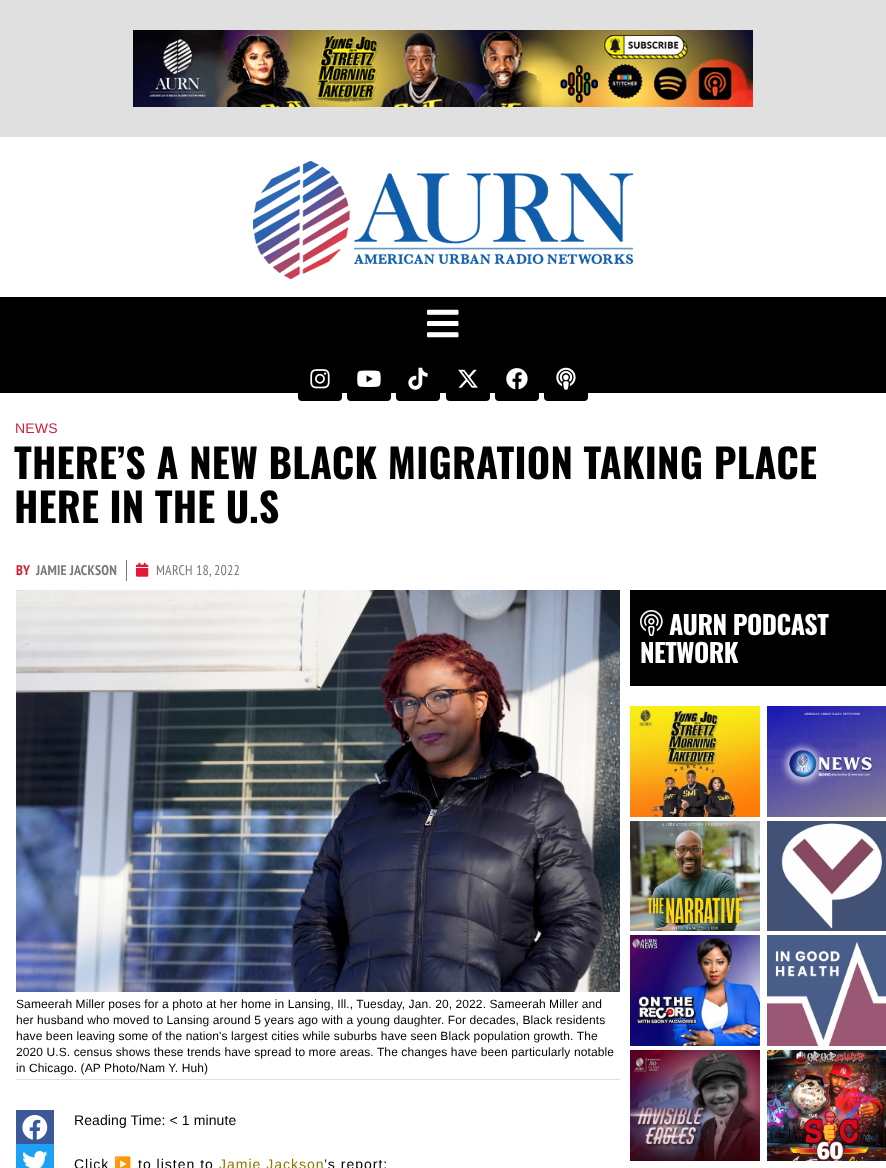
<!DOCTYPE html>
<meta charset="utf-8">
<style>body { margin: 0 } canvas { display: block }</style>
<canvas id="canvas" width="886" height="1168"></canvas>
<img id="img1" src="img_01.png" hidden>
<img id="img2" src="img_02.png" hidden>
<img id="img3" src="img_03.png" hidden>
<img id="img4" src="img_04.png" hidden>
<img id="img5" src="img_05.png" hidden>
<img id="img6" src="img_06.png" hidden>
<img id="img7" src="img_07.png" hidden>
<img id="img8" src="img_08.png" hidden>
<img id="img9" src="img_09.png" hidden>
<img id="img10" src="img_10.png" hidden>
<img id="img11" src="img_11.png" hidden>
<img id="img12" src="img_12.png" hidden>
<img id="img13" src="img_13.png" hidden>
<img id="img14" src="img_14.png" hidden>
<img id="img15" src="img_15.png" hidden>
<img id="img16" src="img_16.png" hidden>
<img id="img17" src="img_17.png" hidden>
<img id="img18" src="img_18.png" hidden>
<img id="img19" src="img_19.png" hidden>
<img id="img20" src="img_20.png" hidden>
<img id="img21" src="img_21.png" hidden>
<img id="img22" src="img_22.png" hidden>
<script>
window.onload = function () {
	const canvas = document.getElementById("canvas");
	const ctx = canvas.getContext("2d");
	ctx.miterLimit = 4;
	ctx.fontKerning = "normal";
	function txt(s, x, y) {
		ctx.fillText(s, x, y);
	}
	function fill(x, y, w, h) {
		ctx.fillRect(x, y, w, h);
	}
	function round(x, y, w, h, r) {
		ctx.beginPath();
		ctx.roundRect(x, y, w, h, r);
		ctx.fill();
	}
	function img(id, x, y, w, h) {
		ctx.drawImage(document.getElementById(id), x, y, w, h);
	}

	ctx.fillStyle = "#FFFFFF";
	fill(0, 0, 886, 1168);
	ctx.fillStyle = "#E0E0E0";
	fill(0, 0, 886, 137);
	img("img1", 133, 30, 620, 77);
	img("img2", 253, 161, 380, 118);
	ctx.fillStyle = "#000000";
	fill(0, 297, 886, 96);
	img("img3", 427, 309, 32, 29);
	round(298, 357, 44, 44, 4);
	img("img4", 310, 369, 20, 20);
	round(347, 357, 44, 44, 4);
	img("img5", 357, 370, 24, 17);
	round(396, 357, 44, 44, 4);
	img("img6", 408, 367, 20, 23);
	round(446, 357, 44, 44, 4);
	img("img7", 458, 369, 20, 19);
	round(495, 357, 44, 44, 4);
	img("img8", 506, 368, 22, 22);
	round(544, 357, 44, 44, 4);
	img("img9", 556, 367, 20, 23);
	ctx.fillStyle = "#7A7A7D";
	fill(126, 560, 1, 21);
	img("img10", 136, 562, 13, 15);
	ctx.fillStyle = "#000000";
	fill(630, 590, 256, 96);
	img("img11", 640, 610, 23, 26);
	img("img12", 630, 706, 130, 111);
	img("img13", 630, 821, 130, 110);
	img("img14", 630, 935, 130, 111);
	img("img15", 630, 1050, 130, 111);
	img("img16", 767, 706, 119, 111);
	img("img17", 767, 821, 119, 110);
	img("img18", 767, 935, 119, 111);
	img("img19", 767, 1050, 119, 111);
	img("img20", 16, 590, 604, 402);
	ctx.fillStyle = "#E0E0E0";
	fill(16, 1079, 604, 1);
	ctx.strokeStyle = "#3B5998";
	ctx.lineWidth = 2;
	ctx.strokeRect(17, 1111, 36, 32);
	ctx.fillStyle = "#3B5998";
	fill(18, 1112, 34, 30);
	img("img21", 22, 1115, 26, 25);
	ctx.strokeStyle = "#1DA1F2";
	ctx.strokeRect(17, 1145, 36, 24);
	ctx.fillStyle = "#1DA1F2";
	fill(18, 1146, 34, 22);
	img("img22", 23, 1151, 25, 17);
	ctx.letterSpacing = "0.2px";
	ctx.font = "14px Liberation Sans";
	ctx.fillStyle = "#D11C3B";
	txt("NEWS", 15, 433);
	ctx.font = "bold 40px Oswald";
	ctx.fillStyle = "#000000";
	txt("THERE’S A NEW BLACK MIGRATION TAKING PLACE", 14, 479);
	txt("HERE IN THE U.S", 14, 523);
	ctx.letterSpacing = "0.1px";
	ctx.font = "bold 14px PT Sans Narrow";
	ctx.fillStyle = "#D11C3B";
	txt("BY", 16, 575);
	ctx.letterSpacing = "0.2px";
	ctx.fillStyle = "#7A7A7D";
	txt("JAMIE JACKSON", 36, 575);
	ctx.font = "14px PT Sans Narrow";
	txt("MARCH 18, 2022", 156, 575);
	ctx.letterSpacing = "-0.5px";
	ctx.font = "bold 26px Oswald";
	ctx.fillStyle = "#FFFFFF";
	txt("AURN PODCAST", 669, 635);
	txt("NETWORK", 640, 663);
	ctx.letterSpacing = "0.1px";
	ctx.font = "12px Liberation Sans";
	ctx.fillStyle = "#000000";
	txt("Sameerah Miller poses for a photo at her home in Lansing, Ill., Tuesday, Jan. 20, 2022. Sameerah Miller and", 16, 1008);
	txt("her husband who moved to Lansing around 5 years ago with a young daughter. For decades, Black residents", 16, 1024);
	txt("have been leaving some of the nation's largest cities while suburbs have seen Black population growth. The", 16, 1040);
	txt("2020 U.S. census shows these trends have spread to more areas. The changes have been particularly notable", 16, 1056);
	txt("in Chicago. (AP Photo/Nam Y. Huh)", 16, 1072);
	ctx.font = "14px Liberation Sans";
	txt("Reading Time: < 1 minute", 74, 1125);
	ctx.letterSpacing = "1px";
	txt("Click", 74, 1169);
	ctx.font = "14px Noto Color Emoji";
	txt("▶️", 114, 1169);
	ctx.font = "14px Liberation Sans";
	txt("to listen to", 138, 1169);
	ctx.fillStyle = "#947401";
	txt("Jamie Jackson", 219, 1169);
	ctx.fillStyle = "#000000";
	txt("’s report:", 324, 1169);
};
</script>
